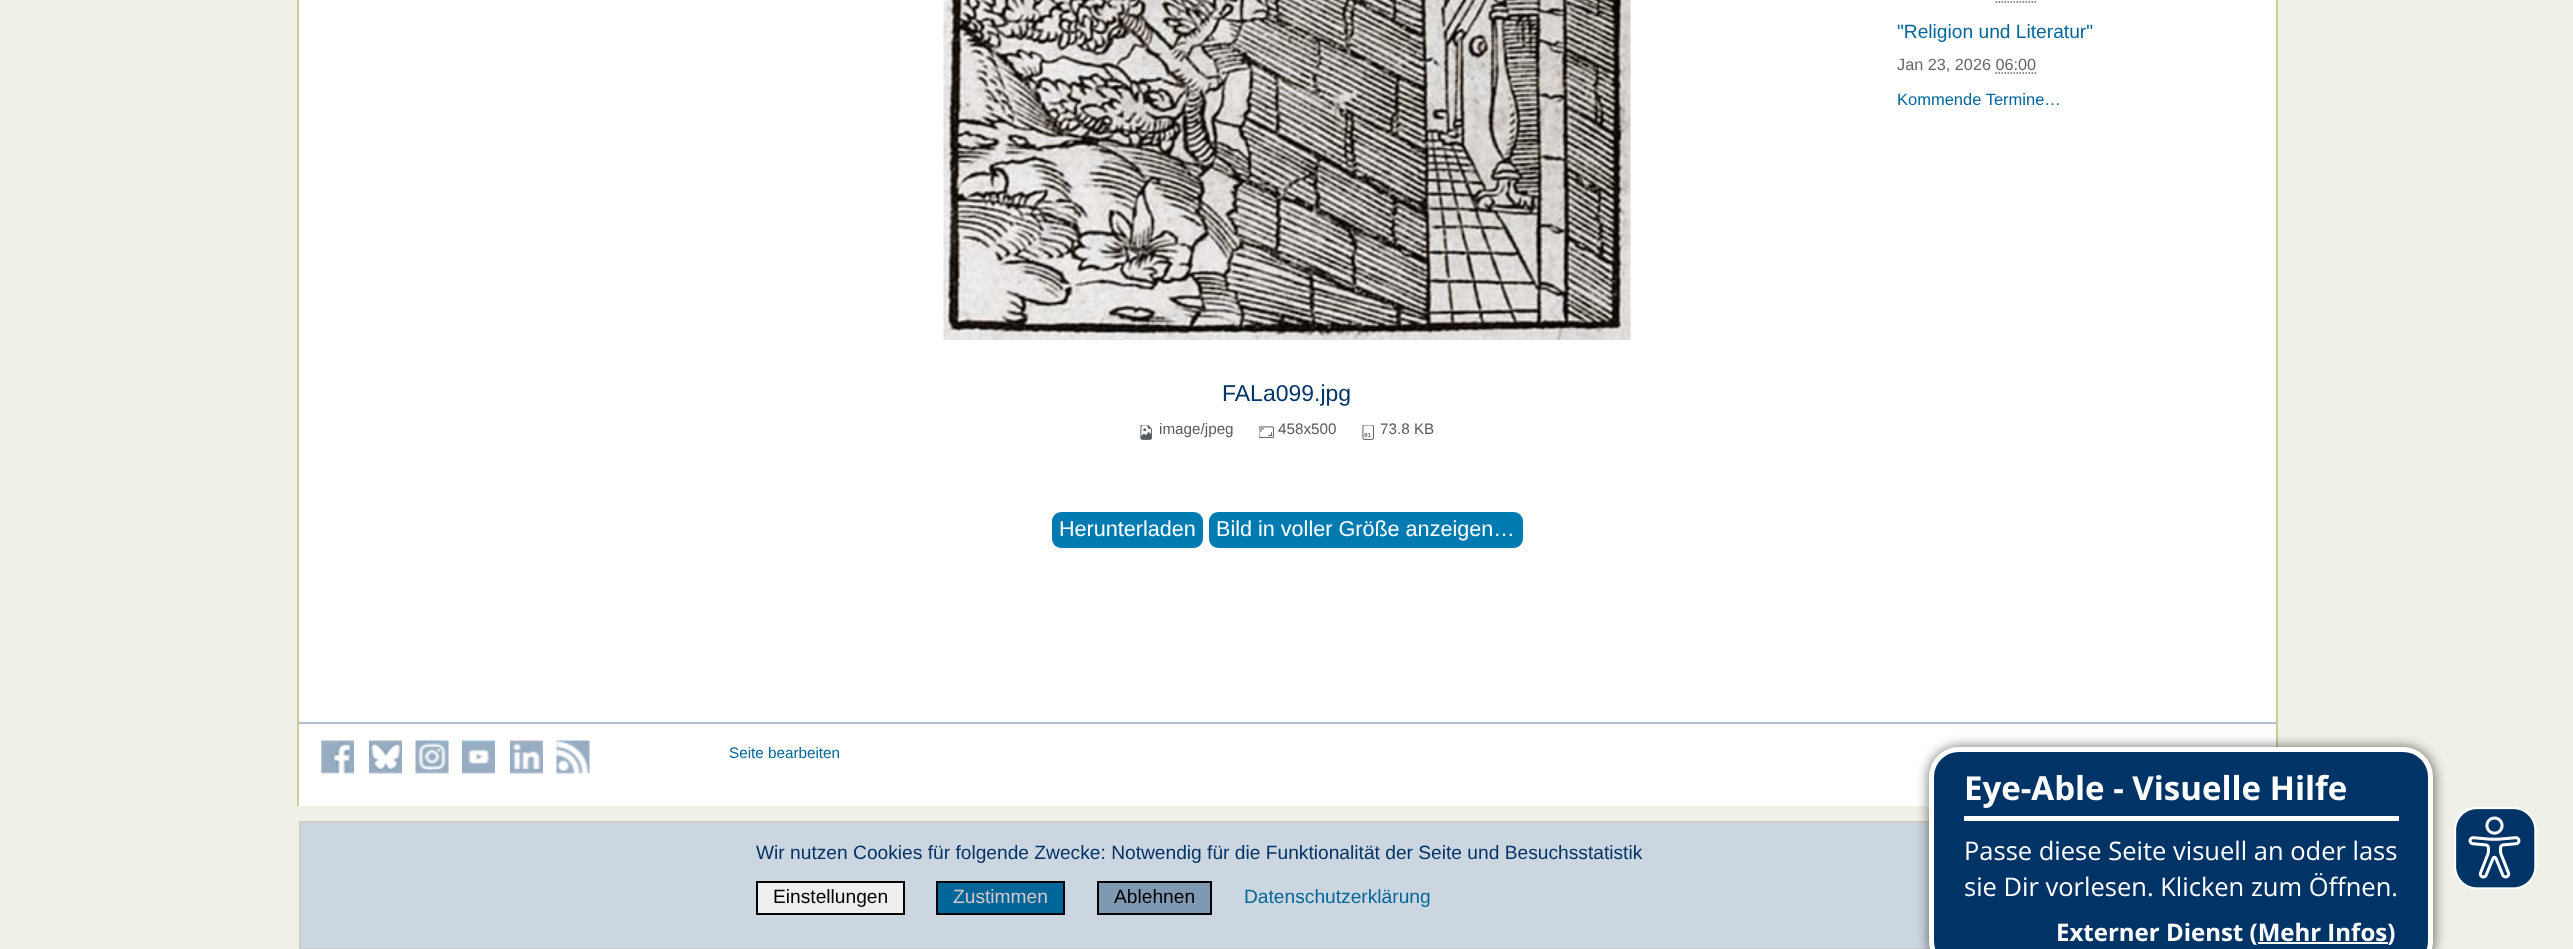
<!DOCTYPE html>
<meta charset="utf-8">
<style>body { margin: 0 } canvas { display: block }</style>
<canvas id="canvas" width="2573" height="949"></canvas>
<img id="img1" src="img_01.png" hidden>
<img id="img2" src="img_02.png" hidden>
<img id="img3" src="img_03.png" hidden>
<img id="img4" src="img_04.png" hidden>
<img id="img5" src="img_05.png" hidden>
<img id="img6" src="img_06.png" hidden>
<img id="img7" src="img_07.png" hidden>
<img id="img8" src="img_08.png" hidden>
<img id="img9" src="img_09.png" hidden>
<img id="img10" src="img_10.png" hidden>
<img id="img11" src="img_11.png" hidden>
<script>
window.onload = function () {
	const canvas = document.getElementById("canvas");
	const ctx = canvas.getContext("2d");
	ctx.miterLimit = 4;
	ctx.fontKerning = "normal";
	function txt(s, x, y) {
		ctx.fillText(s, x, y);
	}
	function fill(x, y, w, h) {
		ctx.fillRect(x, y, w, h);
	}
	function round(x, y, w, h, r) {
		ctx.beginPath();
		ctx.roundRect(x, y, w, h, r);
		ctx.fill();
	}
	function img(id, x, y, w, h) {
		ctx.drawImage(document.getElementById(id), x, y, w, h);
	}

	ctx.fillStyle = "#F0F0E8";
	fill(0, 0, 2573, 949);
	ctx.fillStyle = "#FFFFFF";
	fill(299, 0, 1977, 806);
	ctx.fillStyle = "#CCCC99";
	fill(2276, 0, 2, 747);
	fill(297, 0, 2, 806);
	ctx.beginPath();
	ctx.moveTo(1995.5, 2);
	ctx.lineTo(2036.5, 2);
	ctx.strokeStyle = "#666666";
	ctx.lineWidth = 1.5;
	ctx.setLineDash([1.5, 1.5]);
	ctx.stroke();
	ctx.beginPath();
	ctx.moveTo(1995.5, 73);
	ctx.lineTo(2036.5, 73);
	ctx.stroke();
	img("img1", 943, 0, 688, 340);
	img("img2", 1140, 425, 12, 15);
	img("img3", 1259, 426, 15, 12);
	img("img4", 1362, 425, 12, 15);
	ctx.fillStyle = "#007BB1";
	round(1052, 512, 151, 36, 9);
	round(1209, 512, 314, 36, 9);
	ctx.fillStyle = "#B2C1D1";
	fill(299, 722, 1977, 2);
	img("img5", 321, 740, 33, 34);
	img("img6", 369, 740, 33, 34);
	img("img7", 415, 740, 34, 34);
	img("img8", 462, 740, 33, 34);
	img("img9", 510, 740, 33, 34);
	img("img10", 556, 740, 34, 34);
	ctx.fillStyle = "#CCD6E0";
	fill(301, 823, 1629, 125);
	ctx.strokeStyle = "#CCCCCC";
	ctx.lineWidth = 2;
	ctx.setLineDash([]);
	ctx.strokeRect(300, 822, 1978, 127);
	ctx.fillStyle = "#EFEFEF";
	ctx.beginPath();
	ctx.rect(757, 882, 147, 32);
	ctx.fill();
	ctx.strokeStyle = "#000000";
	ctx.stroke();
	ctx.fillStyle = "#006699";
	ctx.beginPath();
	ctx.rect(937, 882, 127, 32);
	ctx.fill();
	ctx.stroke();
	ctx.fillStyle = "#8099B2";
	ctx.beginPath();
	ctx.rect(1098, 882, 113, 32);
	ctx.fill();
	ctx.stroke();
	ctx.fillStyle = "rgba(0, 0, 0, 0.5)";
	ctx.filter = "blur(6px)";
	ctx.beginPath();
	ctx.roundRect(1928, 746, 507, 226, 32);
	ctx.fill();
	ctx.filter = "none";
	ctx.fillStyle = "#003366";
	ctx.beginPath();
	ctx.roundRect(1931.5, 749.5, 499, 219, 27.5);
	ctx.fill();
	ctx.strokeStyle = "#FFFFFF";
	ctx.lineWidth = 5;
	ctx.stroke();
	ctx.fillStyle = "#FFFFFF";
	fill(1964, 816, 435, 5);
	fill(2258, 942, 130, 2);
	img("img11", 2454, 807, 83, 83);
	ctx.font = "19.2px Liberation Sans";
	ctx.fillStyle = "#006699";
	txt("\"Religion und Literatur\"", 1897, 38);
	ctx.font = "16.25px Liberation Sans";
	ctx.fillStyle = "#666666";
	txt("Jan 23, 2026 06:00", 1897, 70);
	ctx.font = "16.5px Liberation Sans";
	ctx.fillStyle = "#006699";
	txt("Kommende Termine…", 1897, 105);
	ctx.font = "23px Liberation Sans";
	ctx.fillStyle = "#003366";
	txt("FALa099.jpg", 1222, 401);
	ctx.font = "15.25px Liberation Sans";
	ctx.fillStyle = "#595C5F";
	txt("image/jpeg", 1159, 434);
	txt("458x500", 1278, 434);
	txt("73.8 KB", 1380, 434);
	ctx.font = "21.6px Liberation Sans";
	ctx.fillStyle = "#FFFFFF";
	txt("Herunterladen", 1059, 536);
	txt("Bild in voller Größe anzeigen…", 1216, 536);
	ctx.font = "15.25px Liberation Sans";
	ctx.fillStyle = "#006699";
	txt("Seite bearbeiten", 729, 758);
	ctx.font = "19.2px Liberation Sans";
	ctx.fillStyle = "#003366";
	txt("Wir nutzen Cookies für folgende Zwecke: Notwendig für die Funktionalität der Seite und Besuchsstatistik", 756, 859);
	ctx.fillStyle = "#000000";
	txt("Einstellungen", 773, 903);
	ctx.fillStyle = "#D5C7C7";
	txt("Zustimmen", 953, 903);
	ctx.fillStyle = "#000000";
	txt("Ablehnen", 1114, 903);
	ctx.fillStyle = "#006699";
	txt("Datenschutzerklärung", 1244, 903);
	ctx.font = "bold 33px Open Sans";
	ctx.fillStyle = "#FFFFFF";
	txt("Eye-Able - Visuelle Hilfe", 1964, 800);
	ctx.font = "25.5px Open Sans";
	txt("Passe diese Seite visuell an oder lass", 1964, 860);
	txt("sie Dir vorlesen. Klicken zum Öffnen.", 1964, 896);
	ctx.font = "bold 24px Open Sans";
	txt("Externer Dienst (Mehr Infos)", 2056, 941);
};
</script>
